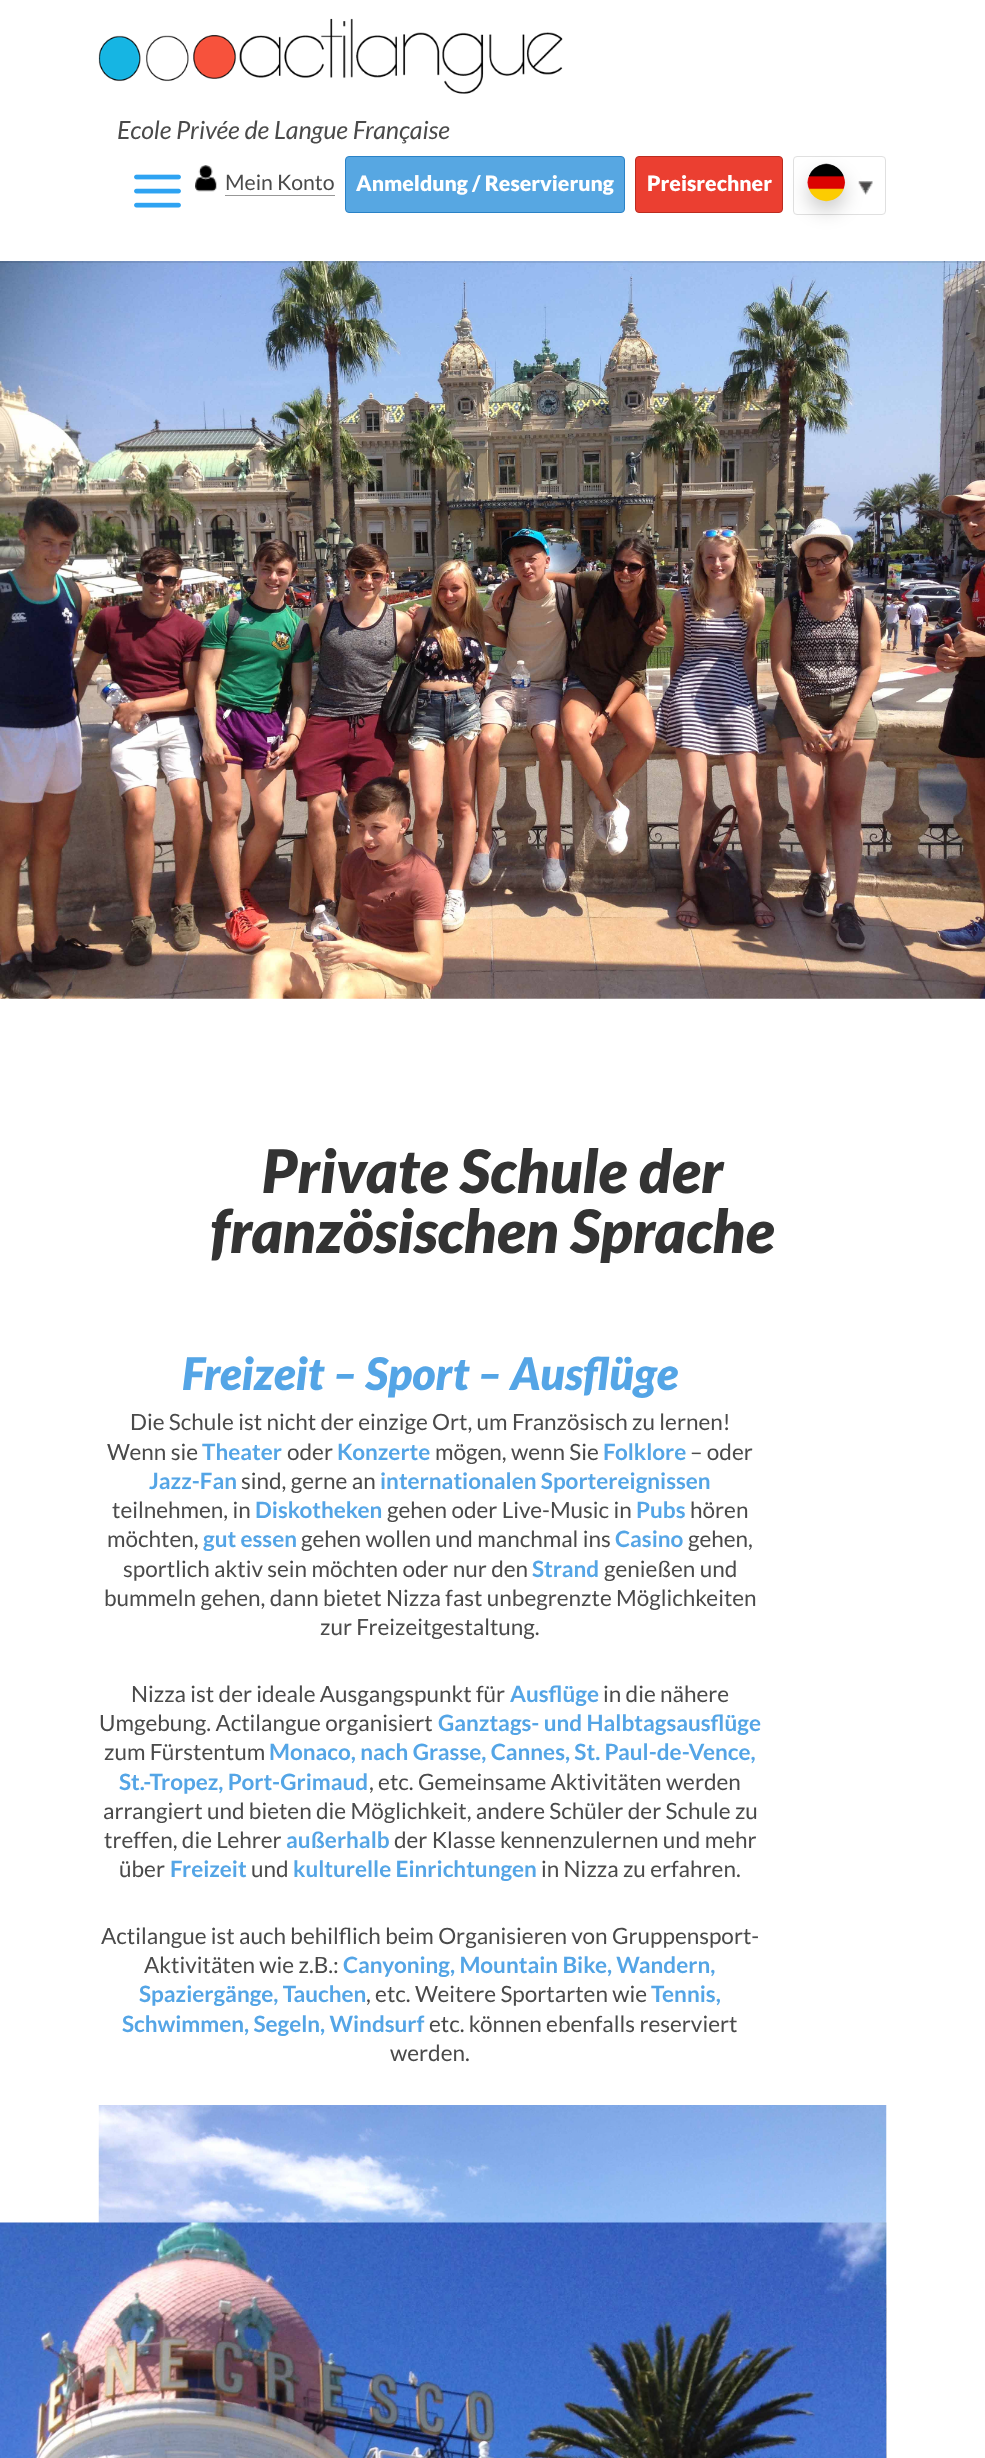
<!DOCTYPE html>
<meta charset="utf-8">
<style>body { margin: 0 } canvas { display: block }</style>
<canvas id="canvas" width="985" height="2458"></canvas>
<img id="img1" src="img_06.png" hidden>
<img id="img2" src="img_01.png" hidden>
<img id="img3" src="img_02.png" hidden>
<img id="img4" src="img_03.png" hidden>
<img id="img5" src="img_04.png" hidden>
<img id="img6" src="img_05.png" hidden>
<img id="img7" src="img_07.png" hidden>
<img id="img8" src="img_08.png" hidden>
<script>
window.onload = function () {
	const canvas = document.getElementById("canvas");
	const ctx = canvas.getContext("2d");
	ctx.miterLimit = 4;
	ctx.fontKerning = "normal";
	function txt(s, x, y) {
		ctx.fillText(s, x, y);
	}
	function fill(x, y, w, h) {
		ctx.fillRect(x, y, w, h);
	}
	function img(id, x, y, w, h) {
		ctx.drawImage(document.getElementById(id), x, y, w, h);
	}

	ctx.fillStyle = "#FFFFFF";
	fill(0, 0, 985, 2458);
	img("img1", 0, 261, 985, 738);
	ctx.fillStyle = "rgba(0, 0, 0, 0.1)";
	fill(0, 261, 985, 2);
	img("img2", 98, 18, 465, 76);
	img("img3", 195, 165, 22, 27);
	ctx.fillStyle = "#979797";
	fill(225, 195, 110, 1);
	ctx.fillStyle = "#57A7E2";
	ctx.beginPath();
	ctx.roundRect(345.5, 156.5, 279, 56, 3.5);
	ctx.fill();
	ctx.strokeStyle = "#2A82C6";
	ctx.stroke();
	ctx.fillStyle = "#EB3F31";
	ctx.beginPath();
	ctx.roundRect(635.5, 156.5, 147, 56, 3.5);
	ctx.fill();
	ctx.strokeStyle = "#BB2C20";
	ctx.stroke();
	ctx.beginPath();
	ctx.roundRect(793.5, 156.5, 92, 58, 3.5);
	ctx.strokeStyle = "#E0E0E0";
	ctx.stroke();
	ctx.fillStyle = "rgba(0, 0, 0, 0.2)";
	ctx.filter = "blur(9.5px)";
	ctx.beginPath();
	ctx.roundRect(808, 174, 37, 37, 18.5);
	ctx.fill();
	ctx.filter = "none";
	ctx.fillStyle = "#D3D3D3";
	ctx.beginPath();
	ctx.arc(826.5, 182.5, 18.5, 0, Math.PI * 2);
	ctx.fill();
	img("img4", 807, 163, 39, 39);
	img("img5", 858, 181, 15, 14);
	img("img6", 134, 174, 47, 34);
	img("img7", 98, 2105, 789, 353);
	img("img8", 0, 2222, 887, 236);
	ctx.font = "italic 25px Lato";
	ctx.fillStyle = "#4A4A4A";
	txt("Ecole Privée de Langue Française", 117, 139);
	ctx.font = "21.25px Lato";
	txt("Mein Konto", 225, 190);
	ctx.font = "900 21.25px Lato";
	ctx.fillStyle = "#FFFFFF";
	txt("Anmeldung / Reservierung", 356, 191);
	txt("Preisrechner", 647, 191);
	ctx.font = "italic 900 60px Lato";
	ctx.fillStyle = "#333333";
	txt("Private Schule der", 262, 1193);
	txt("französischen Sprache", 210, 1253);
	ctx.font = "italic 900 45px Lato";
	ctx.fillStyle = "#54A5E6";
	txt("Freizeit – Sport – Ausflüge", 182, 1390);
	ctx.font = "22.5px Lato";
	ctx.fillStyle = "#4A4A4A";
	txt("Die Schule ist nicht der einzige Ort, um Französisch zu lernen!", 130, 1430);
	txt("Wenn sie", 107, 1460);
	ctx.font = "bold 22.5px Lato";
	ctx.fillStyle = "#54A5E6";
	txt("Theater", 202, 1460);
	ctx.font = "22.5px Lato";
	ctx.fillStyle = "#4A4A4A";
	txt("oder", 287, 1460);
	ctx.font = "bold 22.5px Lato";
	ctx.fillStyle = "#54A5E6";
	txt("Konzerte", 337, 1460);
	ctx.font = "22.5px Lato";
	ctx.fillStyle = "#4A4A4A";
	txt("mögen, wenn Sie", 435, 1460);
	ctx.font = "bold 22.5px Lato";
	ctx.fillStyle = "#54A5E6";
	txt("Folklore", 603, 1460);
	ctx.font = "22.5px Lato";
	ctx.fillStyle = "#4A4A4A";
	txt("– oder", 690, 1460);
	ctx.font = "bold 22.5px Lato";
	ctx.fillStyle = "#54A5E6";
	txt("Jazz-Fan", 149, 1489);
	ctx.font = "22.5px Lato";
	ctx.fillStyle = "#4A4A4A";
	txt("sind, gerne an", 241, 1489);
	ctx.font = "bold 22.5px Lato";
	ctx.fillStyle = "#54A5E6";
	txt("internationalen Sportereignissen", 380, 1489);
	ctx.font = "22.5px Lato";
	ctx.fillStyle = "#4A4A4A";
	txt("teilnehmen, in", 112, 1518);
	ctx.font = "bold 22.5px Lato";
	ctx.fillStyle = "#54A5E6";
	txt("Diskotheken", 255, 1518);
	ctx.font = "22.5px Lato";
	ctx.fillStyle = "#4A4A4A";
	txt("gehen oder Live-Music in", 387, 1518);
	ctx.font = "bold 22.5px Lato";
	ctx.fillStyle = "#54A5E6";
	txt("Pubs", 636, 1518);
	ctx.font = "22.5px Lato";
	ctx.fillStyle = "#4A4A4A";
	txt("hören", 690, 1518);
	txt("möchten,", 107, 1547);
	ctx.font = "bold 22.5px Lato";
	ctx.fillStyle = "#54A5E6";
	txt("gut essen", 203, 1547);
	ctx.font = "22.5px Lato";
	ctx.fillStyle = "#4A4A4A";
	txt("gehen wollen und manchmal ins", 301, 1547);
	ctx.font = "bold 22.5px Lato";
	ctx.fillStyle = "#54A5E6";
	txt("Casino", 615, 1547);
	ctx.font = "22.5px Lato";
	ctx.fillStyle = "#4A4A4A";
	txt("gehen,", 688, 1547);
	txt("sportlich aktiv sein möchten oder nur den", 123, 1577);
	ctx.font = "bold 22.5px Lato";
	ctx.fillStyle = "#54A5E6";
	txt("Strand", 532, 1577);
	ctx.font = "22.5px Lato";
	ctx.fillStyle = "#4A4A4A";
	txt("genießen und", 604, 1577);
	txt("bummeln gehen, dann bietet Nizza fast unbegrenzte Möglichkeiten", 104, 1606);
	txt("zur Freizeitgestaltung.", 320, 1635);
	txt("Nizza ist der ideale Ausgangspunkt für", 131, 1702);
	ctx.font = "bold 22.5px Lato";
	ctx.fillStyle = "#54A5E6";
	txt("Ausflüge", 510, 1702);
	ctx.font = "22.5px Lato";
	ctx.fillStyle = "#4A4A4A";
	txt("in die nähere", 603, 1702);
	txt("Umgebung. Actilangue organisiert", 99, 1731);
	ctx.font = "bold 22.5px Lato";
	ctx.fillStyle = "#54A5E6";
	txt("Ganztags- und Halbtagsausflüge", 438, 1731);
	ctx.font = "22.5px Lato";
	ctx.fillStyle = "#4A4A4A";
	txt("zum Fürstentum", 104, 1760);
	ctx.font = "bold 22.5px Lato";
	ctx.fillStyle = "#54A5E6";
	txt("Monaco, nach Grasse, Cannes, St. Paul-de-Vence,", 269, 1760);
	txt("St.-Tropez, Port-Grimaud", 119, 1790);
	ctx.font = "22.5px Lato";
	ctx.fillStyle = "#4A4A4A";
	txt(", etc. Gemeinsame Aktivitäten werden", 369, 1790);
	txt("arrangiert und bieten die Möglichkeit, andere Schüler der Schule zu", 103, 1819);
	txt("treffen, die Lehrer", 104, 1848);
	ctx.font = "bold 22.5px Lato";
	ctx.fillStyle = "#54A5E6";
	txt("außerhalb", 286, 1848);
	ctx.font = "22.5px Lato";
	ctx.fillStyle = "#4A4A4A";
	txt("der Klasse kennenzulernen und mehr", 394, 1848);
	txt("über", 119, 1877);
	ctx.font = "bold 22.5px Lato";
	ctx.fillStyle = "#54A5E6";
	txt("Freizeit", 170, 1877);
	ctx.font = "22.5px Lato";
	ctx.fillStyle = "#4A4A4A";
	txt("und", 251, 1877);
	ctx.font = "bold 22.5px Lato";
	ctx.fillStyle = "#54A5E6";
	txt("kulturelle Einrichtungen", 293, 1877);
	ctx.font = "22.5px Lato";
	ctx.fillStyle = "#4A4A4A";
	txt("in Nizza zu erfahren.", 541, 1877);
	txt("Actilangue ist auch behilflich beim Organisieren von Gruppensport-", 101, 1944);
	txt("Aktivitäten wie z.B.:", 144, 1973);
	ctx.font = "bold 22.5px Lato";
	ctx.fillStyle = "#54A5E6";
	txt("Canyoning, Mountain Bike, Wandern,", 343, 1973);
	txt("Spaziergänge, Tauchen", 139, 2002);
	ctx.font = "22.5px Lato";
	ctx.fillStyle = "#4A4A4A";
	txt(", etc. Weitere Sportarten wie", 366, 2002);
	ctx.font = "bold 22.5px Lato";
	ctx.fillStyle = "#54A5E6";
	txt("Tennis,", 651, 2002);
	txt("Schwimmen, Segeln, Windsurf", 122, 2032);
	ctx.font = "22.5px Lato";
	ctx.fillStyle = "#4A4A4A";
	txt("etc. können ebenfalls reserviert", 429, 2032);
	txt("werden.", 390, 2061);
};
</script>
